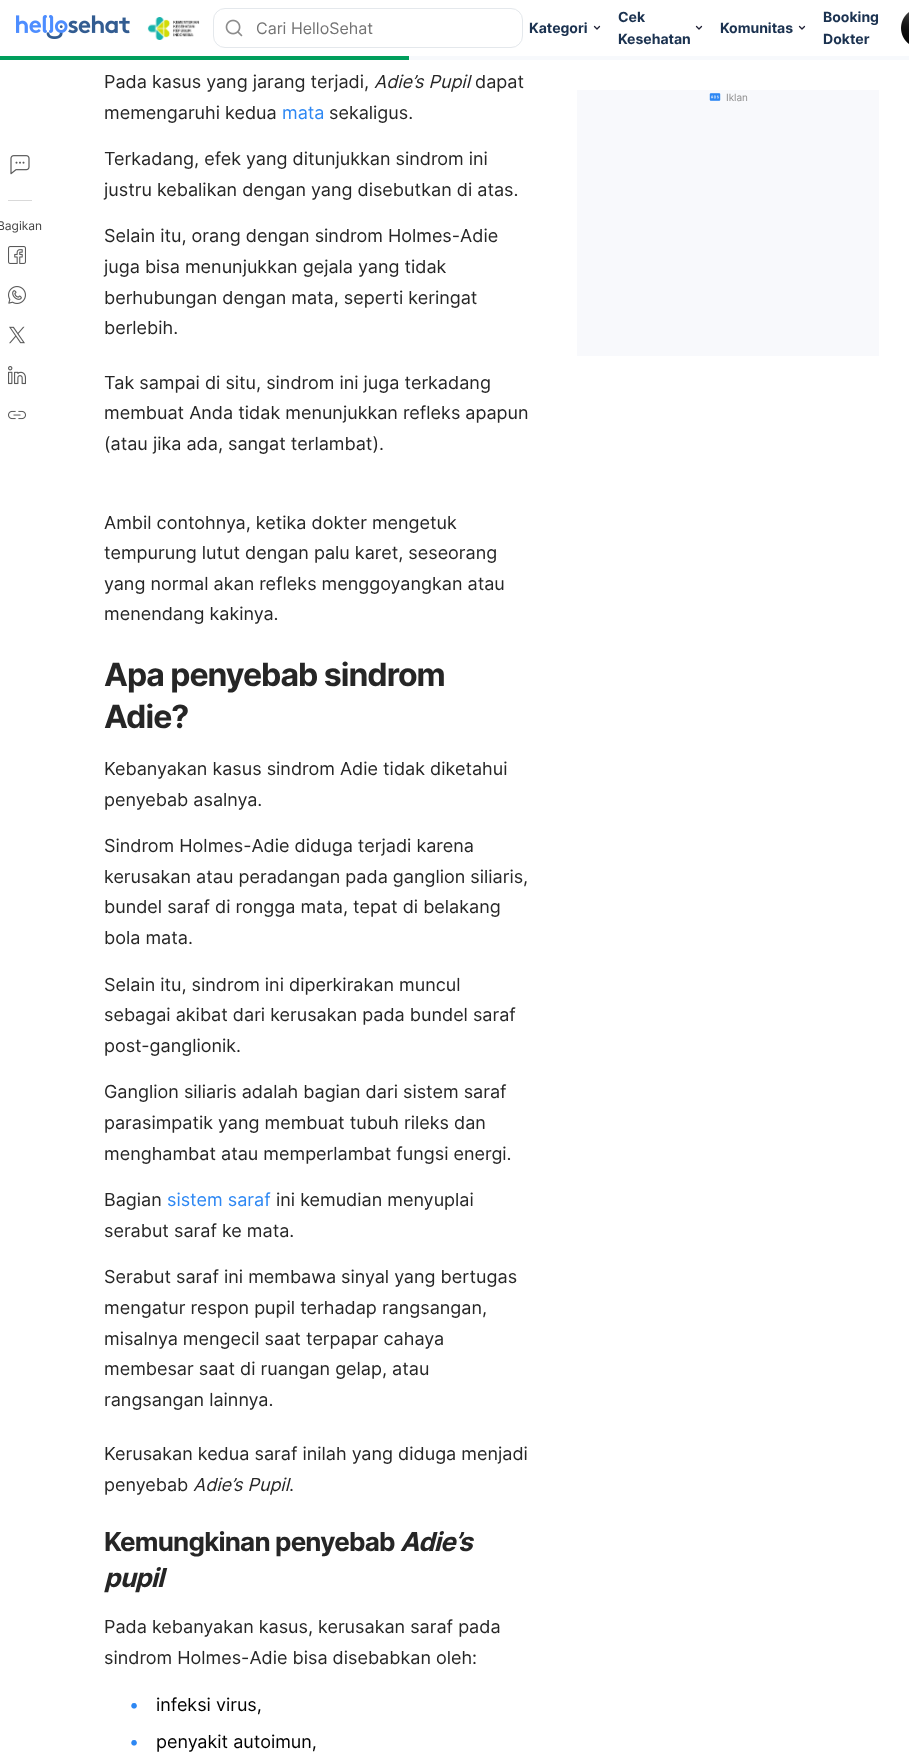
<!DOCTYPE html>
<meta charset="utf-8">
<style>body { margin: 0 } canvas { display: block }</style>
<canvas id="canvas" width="909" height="1762"></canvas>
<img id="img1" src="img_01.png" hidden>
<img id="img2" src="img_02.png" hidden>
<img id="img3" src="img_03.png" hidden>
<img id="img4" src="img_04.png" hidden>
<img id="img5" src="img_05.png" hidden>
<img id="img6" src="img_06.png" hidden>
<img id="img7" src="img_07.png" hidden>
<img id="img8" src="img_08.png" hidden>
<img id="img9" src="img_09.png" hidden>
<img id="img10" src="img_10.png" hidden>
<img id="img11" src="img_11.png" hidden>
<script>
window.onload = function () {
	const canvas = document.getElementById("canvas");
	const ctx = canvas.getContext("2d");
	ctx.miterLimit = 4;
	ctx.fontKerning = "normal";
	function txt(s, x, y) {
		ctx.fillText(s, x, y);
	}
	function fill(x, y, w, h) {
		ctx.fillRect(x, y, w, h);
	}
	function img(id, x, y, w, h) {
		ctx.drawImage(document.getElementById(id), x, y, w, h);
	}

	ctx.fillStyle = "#FFFFFF";
	fill(0, 0, 909, 1762);
	img("img1", 16, 15, 114, 24);
	img("img2", 147, 17, 53, 23);
	ctx.beginPath();
	ctx.roundRect(213.5, 8.5, 309, 39, 11.5);
	ctx.strokeStyle = "#E4E8EC";
	ctx.stroke();
	img("img3", 225, 19, 18, 18);
	ctx.beginPath();
	ctx.moveTo(599.5, 26.5);
	ctx.lineTo(597, 29);
	ctx.lineTo(594.5, 26.5);
	ctx.strokeStyle = "#202135";
	ctx.lineWidth = 1.3;
	ctx.lineCap = "round";
	ctx.lineJoin = "round";
	ctx.stroke();
	ctx.beginPath();
	ctx.moveTo(701.5, 26.5);
	ctx.lineTo(699, 29);
	ctx.lineTo(696.5, 26.5);
	ctx.stroke();
	ctx.beginPath();
	ctx.moveTo(804.5, 26.5);
	ctx.lineTo(802, 29);
	ctx.lineTo(799.5, 26.5);
	ctx.stroke();
	img("img4", 901, 12, 8, 32);
	ctx.fillStyle = "#F7F9FC";
	fill(409, 56, 500, 4);
	ctx.fillStyle = "#009E5C";
	fill(0, 56, 409, 4);
	img("img5", 10, 155, 20, 20);
	ctx.fillStyle = "#D9D9D9";
	fill(8, 200, 24, 1);
	img("img6", 8, 246, 18, 18);
	img("img7", 8, 286, 18, 18);
	img("img8", 9, 326, 16, 18);
	img("img9", 8, 366, 18, 19);
	img("img10", 8, 410, 18, 10);
	ctx.fillStyle = "#F8F9FC";
	fill(577, 90, 302, 266);
	img("img11", 709, 93, 12, 8);
	ctx.font = "16px Inter";
	ctx.fillStyle = "#737373";
	txt("Cari HelloSehat", 256, 34);
	ctx.font = "bold 14px Inter";
	ctx.fillStyle = "#1B3250";
	txt("Kategori", 529, 33);
	txt("Cek", 618, 22);
	txt("Kesehatan", 618, 44);
	txt("Komunitas", 720, 33);
	txt("Booking", 823, 22);
	txt("Dokter", 823, 44);
	ctx.font = "12px Inter";
	ctx.fillStyle = "#404040";
	txt("Bagikan", -3, 230);
	ctx.font = "18px Inter";
	ctx.fillStyle = "#262626";
	txt("Pada kasus yang jarang terjadi,", 104, 88);
	ctx.font = "italic 18px Inter";
	txt("Adie’s Pupil", 374, 88);
	ctx.font = "18px Inter";
	txt("dapat", 475, 88);
	txt("memengaruhi kedua", 104, 119);
	ctx.fillStyle = "#2D87F3";
	txt("mata", 282, 119);
	ctx.fillStyle = "#262626";
	txt("sekaligus.", 329, 119);
	txt("Terkadang, efek yang ditunjukkan sindrom ini", 104, 165);
	txt("justru kebalikan dengan yang disebutkan di atas.", 104, 196);
	txt("Selain itu, orang dengan sindrom Holmes-Adie", 104, 242);
	txt("juga bisa menunjukkan gejala yang tidak", 104, 273);
	txt("berhubungan dengan mata, seperti keringat", 104, 304);
	txt("berlebih.", 104, 334);
	txt("Tak sampai di situ, sindrom ini juga terkadang", 104, 389);
	txt("membuat Anda tidak menunjukkan refleks apapun", 104, 419);
	txt("(atau jika ada, sangat terlambat).", 104, 450);
	txt("Ambil contohnya, ketika dokter mengetuk", 104, 529);
	txt("tempurung lutut dengan palu karet, seseorang", 104, 559);
	txt("yang normal akan refleks menggoyangkan atau", 104, 590);
	txt("menendang kakinya.", 104, 620);
	ctx.letterSpacing = "-1px";
	ctx.font = "bold 32px Inter";
	txt("Apa penyebab sindrom", 104, 686);
	txt("Adie?", 104, 728);
	ctx.letterSpacing = "0px";
	ctx.font = "18px Inter";
	txt("Kebanyakan kasus sindrom Adie tidak diketahui", 104, 775);
	txt("penyebab asalnya.", 104, 806);
	txt("Sindrom Holmes-Adie diduga terjadi karena", 104, 852);
	txt("kerusakan atau peradangan pada ganglion siliaris,", 104, 883);
	txt("bundel saraf di rongga mata, tepat di belakang", 104, 913);
	txt("bola mata.", 104, 944);
	txt("Selain itu, sindrom ini diperkirakan muncul", 104, 991);
	txt("sebagai akibat dari kerusakan pada bundel saraf", 104, 1021);
	txt("post-ganglionik.", 104, 1052);
	txt("Ganglion siliaris adalah bagian dari sistem saraf", 104, 1098);
	txt("parasimpatik yang membuat tubuh rileks dan", 104, 1129);
	txt("menghambat atau memperlambat fungsi energi.", 104, 1160);
	txt("Bagian", 104, 1206);
	ctx.fillStyle = "#2D87F3";
	txt("sistem saraf", 167, 1206);
	ctx.fillStyle = "#262626";
	txt("ini kemudian menyuplai", 276, 1206);
	txt("serabut saraf ke mata.", 104, 1237);
	txt("Serabut saraf ini membawa sinyal yang bertugas", 104, 1283);
	txt("mengatur respon pupil terhadap rangsangan,", 104, 1314);
	txt("misalnya mengecil saat terpapar cahaya", 104, 1345);
	txt("membesar saat di ruangan gelap, atau", 104, 1375);
	txt("rangsangan lainnya.", 104, 1406);
	txt("Kerusakan kedua saraf inilah yang diduga menjadi", 104, 1460);
	txt("penyebab", 104, 1491);
	ctx.font = "italic 18px Inter";
	txt("Adie’s Pupil", 193, 1491);
	ctx.font = "18px Inter";
	txt(".", 289, 1491);
	ctx.letterSpacing = "-0.8px";
	ctx.font = "bold 26px Inter";
	txt("Kemungkinan penyebab", 104, 1551);
	ctx.font = "italic bold 26px Inter";
	txt("Adie’s", 400, 1551);
	txt("pupil", 104, 1587);
	ctx.letterSpacing = "0px";
	ctx.font = "18px Inter";
	txt("Pada kebanyakan kasus, kerusakan saraf pada", 104, 1633);
	txt("sindrom Holmes-Adie bisa disebabkan oleh:", 104, 1664);
	ctx.fillStyle = "#2D87F3";
	txt("•", 129, 1711);
	ctx.fillStyle = "#000000";
	txt("infeksi virus,", 156, 1711);
	ctx.fillStyle = "#2D87F3";
	txt("•", 129, 1748);
	ctx.fillStyle = "#000000";
	txt("penyakit autoimun,", 156, 1748);
	ctx.font = "10px Inter";
	ctx.fillStyle = "#8C8C8C";
	txt("Iklan", 726, 101);
};
</script>
